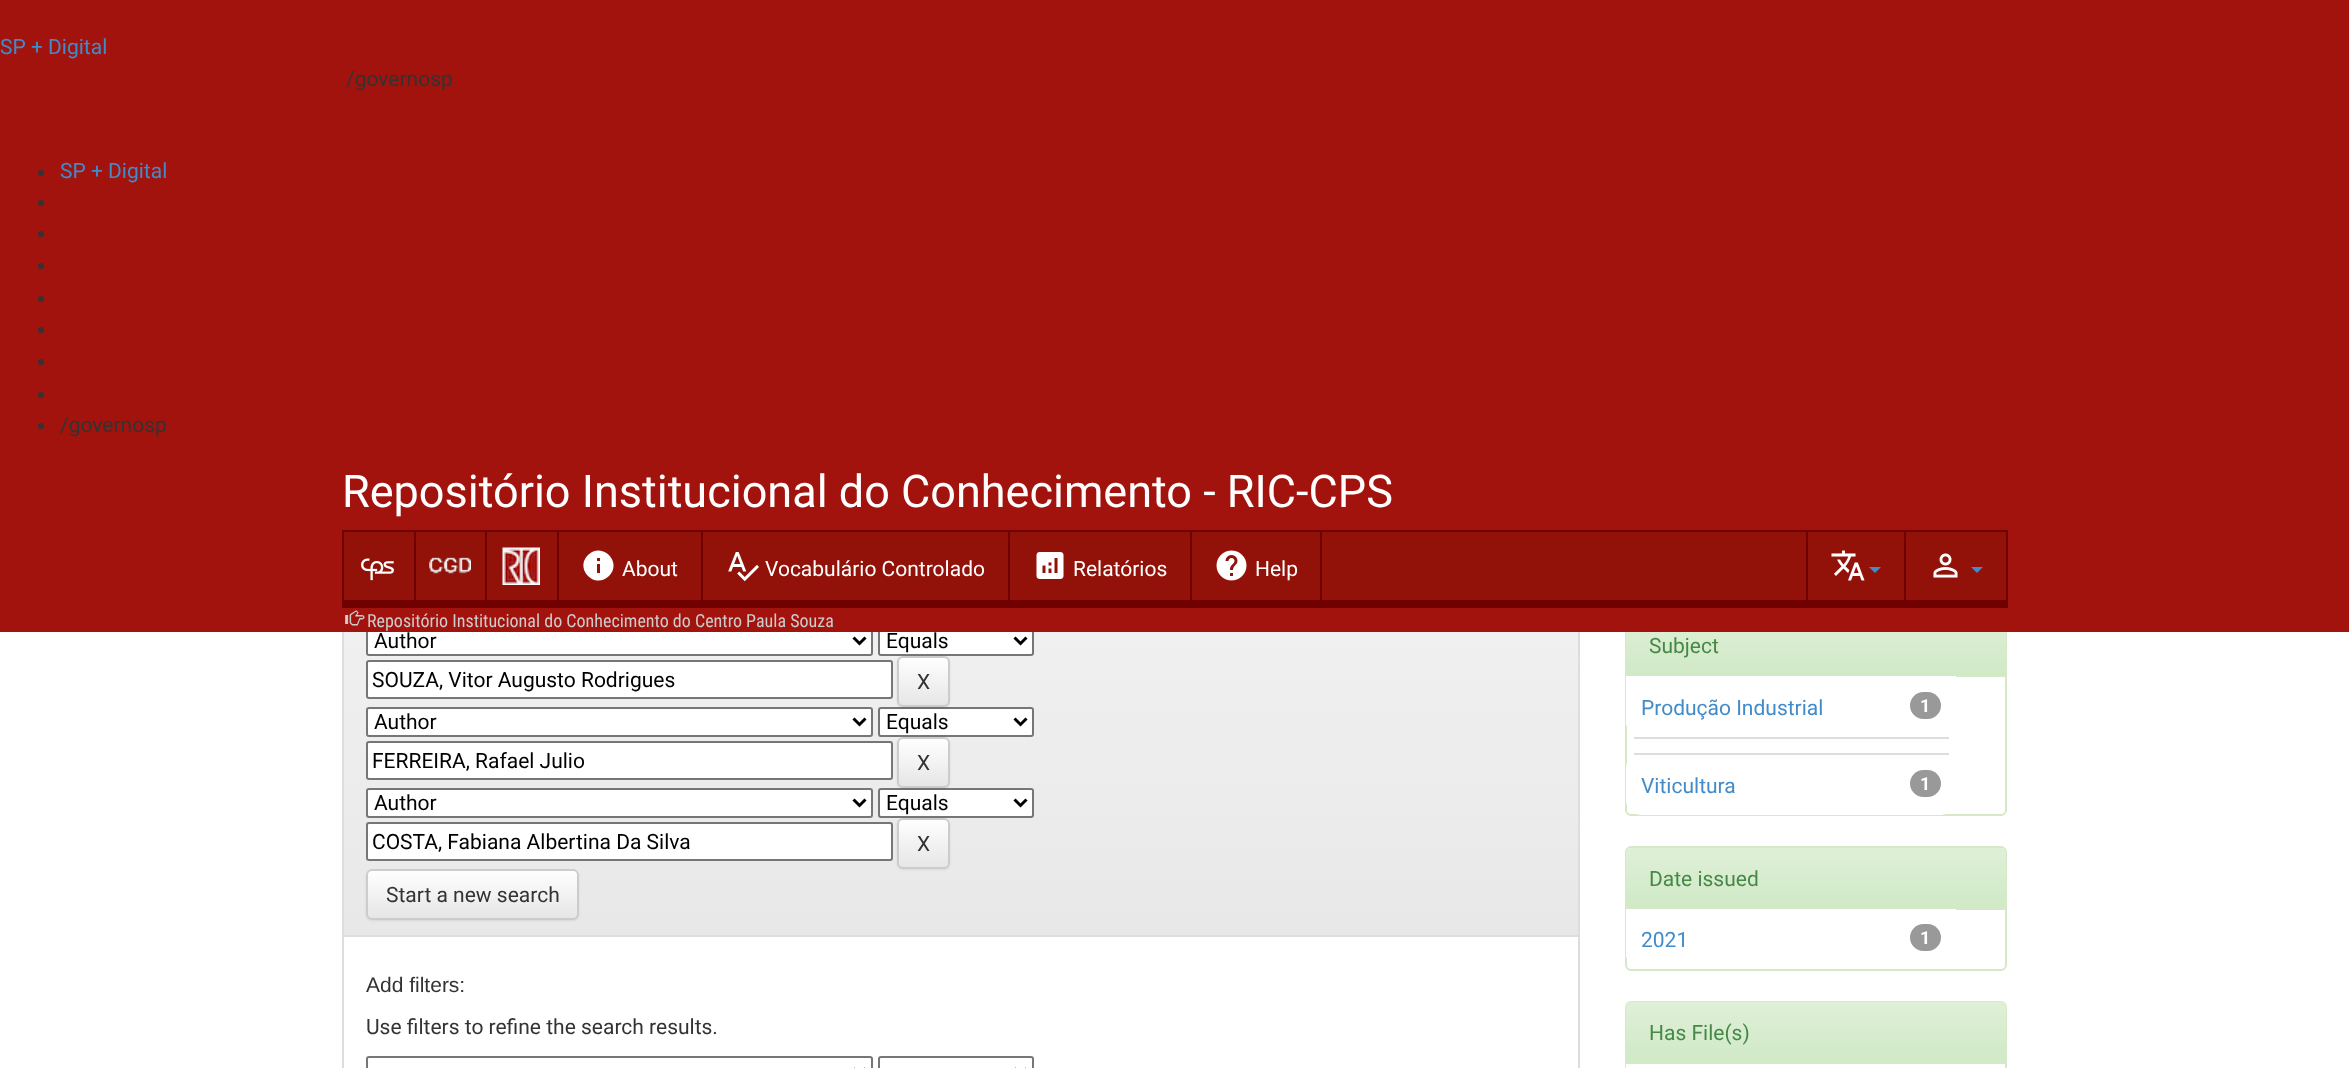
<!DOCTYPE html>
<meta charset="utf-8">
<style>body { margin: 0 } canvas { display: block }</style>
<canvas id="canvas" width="2349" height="1068"></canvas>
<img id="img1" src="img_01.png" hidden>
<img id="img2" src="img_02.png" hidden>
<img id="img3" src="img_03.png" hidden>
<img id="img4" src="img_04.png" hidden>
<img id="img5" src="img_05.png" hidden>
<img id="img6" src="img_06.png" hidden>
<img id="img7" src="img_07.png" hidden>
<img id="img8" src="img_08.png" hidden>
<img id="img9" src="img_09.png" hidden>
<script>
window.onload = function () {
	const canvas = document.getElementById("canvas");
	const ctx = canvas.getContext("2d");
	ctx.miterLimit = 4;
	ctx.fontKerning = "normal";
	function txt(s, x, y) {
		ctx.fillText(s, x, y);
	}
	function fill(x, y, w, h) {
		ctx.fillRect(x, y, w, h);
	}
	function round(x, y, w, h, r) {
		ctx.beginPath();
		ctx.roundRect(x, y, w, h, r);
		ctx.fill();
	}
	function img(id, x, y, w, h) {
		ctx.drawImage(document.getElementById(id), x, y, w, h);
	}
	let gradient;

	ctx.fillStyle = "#FFFFFF";
	fill(0, 0, 2349, 1068);
	ctx.strokeStyle = "#DDDDDD";
	ctx.lineWidth = 2;
	ctx.strokeRect(343, 441, 1236, 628);
	gradient = ctx.createLinearGradient(961, 441, 961, 935);
	gradient.addColorStop(0, "#F5F5F5");
	gradient.addColorStop(1, "#E8E8E8");
	ctx.fillStyle = gradient;
	fill(344, 632, 1234, 303);
	ctx.fillStyle = "#FFFFFF";
	ctx.beginPath();
	ctx.roundRect(367, 627, 505, 28, 2);
	ctx.fill();
	ctx.strokeStyle = "#767676";
	ctx.stroke();
	ctx.beginPath();
	ctx.roundRect(879, 627, 154, 28, 2);
	ctx.fill();
	ctx.stroke();
	ctx.beginPath();
	ctx.roundRect(1626, 615, 380, 200, 5);
	ctx.strokeStyle = "#D6E9C6";
	ctx.stroke();
	ctx.fillStyle = "#A3130D";
	fill(0, 0, 2349, 632);
	ctx.fillStyle = "#333333";
	ctx.beginPath();
	ctx.arc(41, 173, 3, 0, Math.PI * 2);
	ctx.fill();
	ctx.beginPath();
	ctx.arc(41, 203, 3, 0, Math.PI * 2);
	ctx.fill();
	ctx.beginPath();
	ctx.arc(41, 234, 3, 0, Math.PI * 2);
	ctx.fill();
	ctx.beginPath();
	ctx.arc(41, 266, 3, 0, Math.PI * 2);
	ctx.fill();
	ctx.beginPath();
	ctx.arc(41, 299, 3, 0, Math.PI * 2);
	ctx.fill();
	ctx.beginPath();
	ctx.arc(41, 330, 3, 0, Math.PI * 2);
	ctx.fill();
	ctx.beginPath();
	ctx.arc(41, 362, 3, 0, Math.PI * 2);
	ctx.fill();
	ctx.beginPath();
	ctx.arc(41, 395, 3, 0, Math.PI * 2);
	ctx.fill();
	ctx.beginPath();
	ctx.arc(41, 426, 3, 0, Math.PI * 2);
	ctx.fill();
	ctx.fillStyle = "#921209";
	fill(344, 532, 1662, 68);
	ctx.fillStyle = "#710000";
	fill(342, 530, 1665, 2);
	fill(2006, 530, 2, 78);
	fill(342, 600, 1665, 8);
	fill(342, 530, 2, 78);
	fill(414, 531, 2, 71);
	img("img1", 361, 558, 33, 23);
	fill(485, 531, 2, 69);
	img("img2", 429, 556, 42, 18);
	fill(557, 531, 2, 71);
	img("img3", 502, 547, 38, 38);
	fill(701, 531, 2, 69);
	ctx.fillStyle = "#FFFFFF";
	ctx.beginPath();
	ctx.moveTo(600, 561);
	ctx.lineTo(600, 558);
	ctx.lineTo(597, 558);
	ctx.lineTo(597, 561);
	ctx.closePath();
	ctx.moveTo(600, 573);
	ctx.lineTo(600, 564);
	ctx.lineTo(597, 564);
	ctx.lineTo(597, 573);
	ctx.closePath();
	ctx.moveTo(588, 555);
	ctx.bezierCurveTo(602, 541, 623, 562, 609, 576);
	ctx.bezierCurveTo(595, 590, 574, 569, 588, 555);
	ctx.closePath();
	ctx.fill();
	ctx.fillStyle = "#710000";
	fill(1008, 531, 2, 69);
	img("img4", 728, 552, 31, 30);
	fill(1190, 531, 2, 69);
	img("img5", 1036, 552, 28, 27);
	fill(1320, 531, 2, 69);
	img("img6", 1216, 550, 31, 31);
	fill(1806, 531, 2, 69);
	img("img7", 1831, 550, 34, 31);
	ctx.fillStyle = "#428BCA";
	ctx.beginPath();
	ctx.moveTo(1869, 567);
	ctx.lineTo(1881, 567);
	ctx.lineTo(1875, 573);
	ctx.closePath();
	ctx.fill();
	ctx.fillStyle = "#710000";
	fill(1904, 531, 2, 69);
	img("img8", 1933, 553, 25, 25);
	ctx.fillStyle = "#428BCA";
	ctx.beginPath();
	ctx.moveTo(1971, 567);
	ctx.lineTo(1983, 567);
	ctx.lineTo(1977, 573);
	ctx.closePath();
	ctx.fill();
	img("img9", 345, 610, 20, 16);
	ctx.fillStyle = "#DDDDDD";
	fill(344, 935, 1234, 2);
	ctx.beginPath();
	ctx.moveTo(853.5, 637.5);
	ctx.lineTo(859.5, 643.5);
	ctx.lineTo(865.5, 637.5);
	ctx.strokeStyle = "#000000";
	ctx.lineWidth = 3;
	ctx.stroke();
	ctx.beginPath();
	ctx.moveTo(1014.5, 637.5);
	ctx.lineTo(1020.5, 643.5);
	ctx.lineTo(1026.5, 637.5);
	ctx.stroke();
	ctx.fillStyle = "#FFFFFF";
	ctx.beginPath();
	ctx.roundRect(367, 661, 525, 37, 2);
	ctx.fill();
	ctx.strokeStyle = "#767676";
	ctx.lineWidth = 2;
	ctx.stroke();
	ctx.beginPath();
	ctx.roundRect(879, 708, 154, 28, 2);
	ctx.fill();
	ctx.stroke();
	ctx.fillStyle = "rgba(0, 0, 0, 0.07)";
	ctx.filter = "blur(1px)";
	ctx.beginPath();
	ctx.roundRect(897, 657, 53, 51, 6);
	ctx.fill();
	ctx.filter = "none";
	ctx.save();
	ctx.beginPath();
	ctx.roundRect(897, 656, 53, 51, 6);
	ctx.clip();
	gradient = ctx.createLinearGradient(923, 657, 923, 705);
	gradient.addColorStop(0, "#FFFFFF");
	gradient.addColorStop(1, "#E6E6E6");
	ctx.fillStyle = gradient;
	fill(897, 657, 53, 48);
	ctx.restore();
	ctx.beginPath();
	ctx.roundRect(898, 657, 51, 49, 5);
	ctx.strokeStyle = "#CCCCCC";
	ctx.stroke();
	ctx.fillStyle = "#FFFFFF";
	ctx.beginPath();
	ctx.roundRect(367, 708, 505, 28, 2);
	ctx.fill();
	ctx.strokeStyle = "#767676";
	ctx.stroke();
	ctx.beginPath();
	ctx.moveTo(853.5, 718.5);
	ctx.lineTo(859.5, 724.5);
	ctx.lineTo(865.5, 718.5);
	ctx.strokeStyle = "#000000";
	ctx.lineWidth = 3;
	ctx.stroke();
	ctx.beginPath();
	ctx.moveTo(1014.5, 718.5);
	ctx.lineTo(1020.5, 724.5);
	ctx.lineTo(1026.5, 718.5);
	ctx.stroke();
	ctx.beginPath();
	ctx.roundRect(367, 742, 525, 37, 2);
	ctx.fill();
	ctx.strokeStyle = "#767676";
	ctx.lineWidth = 2;
	ctx.stroke();
	ctx.beginPath();
	ctx.roundRect(879, 789, 154, 28, 2);
	ctx.fill();
	ctx.stroke();
	ctx.fillStyle = "rgba(0, 0, 0, 0.07)";
	ctx.filter = "blur(1px)";
	ctx.beginPath();
	ctx.roundRect(897, 738, 53, 51, 6);
	ctx.fill();
	ctx.filter = "none";
	ctx.save();
	ctx.beginPath();
	ctx.roundRect(897, 737, 53, 51, 6);
	ctx.clip();
	gradient = ctx.createLinearGradient(923, 738, 923, 786);
	gradient.addColorStop(0, "#FFFFFF");
	gradient.addColorStop(1, "#E6E6E6");
	ctx.fillStyle = gradient;
	fill(897, 738, 53, 48);
	ctx.restore();
	ctx.beginPath();
	ctx.roundRect(898, 738, 51, 49, 5);
	ctx.strokeStyle = "#CCCCCC";
	ctx.stroke();
	ctx.fillStyle = "#FFFFFF";
	ctx.beginPath();
	ctx.roundRect(367, 789, 505, 28, 2);
	ctx.fill();
	ctx.strokeStyle = "#767676";
	ctx.stroke();
	ctx.beginPath();
	ctx.moveTo(853.5, 799.5);
	ctx.lineTo(859.5, 805.5);
	ctx.lineTo(865.5, 799.5);
	ctx.strokeStyle = "#000000";
	ctx.lineWidth = 3;
	ctx.stroke();
	ctx.beginPath();
	ctx.moveTo(1014.5, 799.5);
	ctx.lineTo(1020.5, 805.5);
	ctx.lineTo(1026.5, 799.5);
	ctx.stroke();
	ctx.beginPath();
	ctx.roundRect(367, 823, 525, 37, 2);
	ctx.fill();
	ctx.strokeStyle = "#767676";
	ctx.lineWidth = 2;
	ctx.stroke();
	ctx.fillStyle = "rgba(0, 0, 0, 0.07)";
	ctx.filter = "blur(1px)";
	ctx.beginPath();
	ctx.roundRect(897, 819, 53, 51, 6);
	ctx.fill();
	ctx.filter = "none";
	ctx.save();
	ctx.beginPath();
	ctx.roundRect(897, 818, 53, 51, 6);
	ctx.clip();
	gradient = ctx.createLinearGradient(923, 819, 923, 867);
	gradient.addColorStop(0, "#FFFFFF");
	gradient.addColorStop(1, "#E6E6E6");
	ctx.fillStyle = gradient;
	fill(897, 819, 53, 48);
	ctx.restore();
	ctx.beginPath();
	ctx.roundRect(898, 819, 51, 49, 5);
	ctx.strokeStyle = "#CCCCCC";
	ctx.stroke();
	ctx.filter = "blur(1px)";
	ctx.beginPath();
	ctx.roundRect(366, 870, 213, 51, 6);
	ctx.fill();
	ctx.filter = "none";
	ctx.save();
	ctx.beginPath();
	ctx.roundRect(366, 869, 213, 51, 6);
	ctx.clip();
	gradient = ctx.createLinearGradient(473, 870, 473, 918);
	gradient.addColorStop(0, "#FFFFFF");
	gradient.addColorStop(1, "#E6E6E6");
	ctx.fillStyle = gradient;
	fill(366, 870, 213, 48);
	ctx.restore();
	ctx.beginPath();
	ctx.roundRect(367, 870, 211, 49, 5);
	ctx.stroke();
	ctx.beginPath();
	ctx.roundRect(367, 1057, 505, 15, 2);
	ctx.strokeStyle = "#767676";
	ctx.stroke();
	ctx.beginPath();
	ctx.moveTo(853.5, 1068.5);
	ctx.lineTo(859.5, 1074.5);
	ctx.lineTo(865.5, 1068.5);
	ctx.strokeStyle = "#000000";
	ctx.lineWidth = 3;
	ctx.stroke();
	ctx.beginPath();
	ctx.roundRect(879, 1057, 154, 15, 2);
	ctx.strokeStyle = "#767676";
	ctx.lineWidth = 2;
	ctx.stroke();
	ctx.beginPath();
	ctx.moveTo(1014.5, 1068.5);
	ctx.lineTo(1020.5, 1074.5);
	ctx.lineTo(1026.5, 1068.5);
	ctx.strokeStyle = "#000000";
	ctx.lineWidth = 3;
	ctx.stroke();
	gradient = ctx.createLinearGradient(1816, 615, 1816, 675);
	gradient.addColorStop(0, "#DFF0D8");
	gradient.addColorStop(1, "#D0E9C6");
	ctx.fillStyle = gradient;
	fill(1626, 632, 380, 43);
	ctx.fillStyle = "#D6E9C6";
	fill(1626, 675, 380, 2);
	ctx.fillStyle = "#FFFFFF";
	ctx.beginPath();
	ctx.moveTo(1626, 676);
	ctx.lineTo(1956, 676);
	ctx.lineTo(1956, 723);
	ctx.bezierCurveTo(1956, 730, 1949, 736, 1941, 736);
	ctx.lineTo(1641, 736);
	ctx.bezierCurveTo(1633, 736, 1626, 730, 1626, 723);
	ctx.closePath();
	ctx.fill();
	ctx.fillStyle = "#DDDDDD";
	fill(1634, 737, 315, 2);
	ctx.fillStyle = "#999999";
	round(1910, 692, 31, 27, 13.5);
	ctx.fillStyle = "#FFFFFF";
	round(1626, 753, 330, 62, 15);
	ctx.fillStyle = "#DDDDDD";
	fill(1634, 753, 315, 2);
	ctx.fillStyle = "#999999";
	round(1910, 770, 31, 27, 13.5);
	ctx.beginPath();
	ctx.roundRect(1626, 847, 380, 123, 5);
	ctx.strokeStyle = "#D6E9C6";
	ctx.lineWidth = 2;
	ctx.stroke();
	gradient = ctx.createLinearGradient(1816, 848, 1816, 908);
	gradient.addColorStop(0, "#DFF0D8");
	gradient.addColorStop(1, "#D0E9C6");
	ctx.fillStyle = gradient;
	ctx.beginPath();
	ctx.roundRect(1626, 848, 380, 60, [5, 5, 0, 0]);
	ctx.fill();
	ctx.fillStyle = "#D6E9C6";
	fill(1626, 908, 380, 2);
	ctx.fillStyle = "#FFFFFF";
	ctx.beginPath();
	ctx.roundRect(1626, 909, 330, 60, [0, 0, 15, 15]);
	ctx.fill();
	ctx.fillStyle = "#999999";
	round(1910, 924, 31, 27, 13.5);
	ctx.beginPath();
	ctx.roundRect(1626, 1002, 380, 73, 5);
	ctx.stroke();
	gradient = ctx.createLinearGradient(1816, 1002, 1816, 1062);
	gradient.addColorStop(0, "#DFF0D8");
	gradient.addColorStop(1, "#D0E9C6");
	ctx.fillStyle = gradient;
	ctx.beginPath();
	ctx.roundRect(1626, 1002, 380, 60, [5, 5, 0, 0]);
	ctx.fill();
	ctx.fillStyle = "#D6E9C6";
	fill(1626, 1062, 380, 2);
	ctx.fillStyle = "#FFFFFF";
	fill(1626, 1064, 1, 4);
	ctx.font = "21px Roboto";
	ctx.fillStyle = "#428BCA";
	txt("SP + Digital", 0, 54);
	ctx.fillStyle = "#333333";
	txt("/governosp", 346, 86);
	ctx.fillStyle = "#428BCA";
	txt("SP + Digital", 60, 178);
	ctx.fillStyle = "#333333";
	txt("/governosp", 60, 432);
	ctx.font = "45px Roboto";
	ctx.fillStyle = "#FFFFFF";
	txt("Repositório Institucional do Conhecimento - RIC-CPS", 342, 507);
	ctx.font = "21px Roboto";
	txt("About", 622, 576);
	txt("Vocabulário Controlado", 765, 576);
	txt("Relatórios", 1073, 576);
	txt("Help", 1255, 576);
	ctx.font = "18px Roboto Condensed";
	ctx.fillStyle = "#CCCCCC";
	txt("Repositório Institucional do Conhecimento do Centro Paula Souza", 367, 627);
	ctx.font = "21px Roboto";
	ctx.fillStyle = "#000000";
	txt("Author", 374, 648);
	txt("Equals", 886, 648);
	txt("SOUZA, Vitor Augusto Rodrigues", 372, 687);
	ctx.fillStyle = "#333333";
	txt("X", 917, 689);
	ctx.fillStyle = "#000000";
	txt("Author", 374, 729);
	txt("Equals", 886, 729);
	txt("FERREIRA, Rafael Julio", 372, 768);
	ctx.fillStyle = "#333333";
	txt("X", 917, 770);
	ctx.fillStyle = "#000000";
	txt("Author", 374, 810);
	txt("Equals", 886, 810);
	txt("COSTA, Fabiana Albertina Da Silva", 372, 849);
	ctx.fillStyle = "#333333";
	txt("X", 917, 851);
	txt("Start a new search", 386, 902);
	ctx.font = "21px Liberation Sans";
	txt("Add filters:", 366, 992);
	ctx.font = "21px Roboto";
	txt("Use filters to refine the search results.", 366, 1034);
	ctx.fillStyle = "#468847";
	txt("Subject", 1649, 653);
	ctx.fillStyle = "#428BCA";
	txt("Produção Industrial", 1641, 715);
	ctx.font = "bold 18px Roboto";
	ctx.fillStyle = "#FFFFFF";
	txt("1", 1920, 712);
	ctx.font = "21px Roboto";
	ctx.fillStyle = "#428BCA";
	txt("Viticultura", 1641, 793);
	ctx.font = "bold 18px Roboto";
	ctx.fillStyle = "#FFFFFF";
	txt("1", 1920, 790);
	ctx.font = "21px Roboto";
	ctx.fillStyle = "#468847";
	txt("Date issued", 1649, 886);
	ctx.fillStyle = "#428BCA";
	txt("2021", 1641, 947);
	ctx.font = "bold 18px Roboto";
	ctx.fillStyle = "#FFFFFF";
	txt("1", 1920, 944);
	ctx.font = "21px Roboto";
	ctx.fillStyle = "#468847";
	txt("Has File(s)", 1649, 1040);
};
</script>
